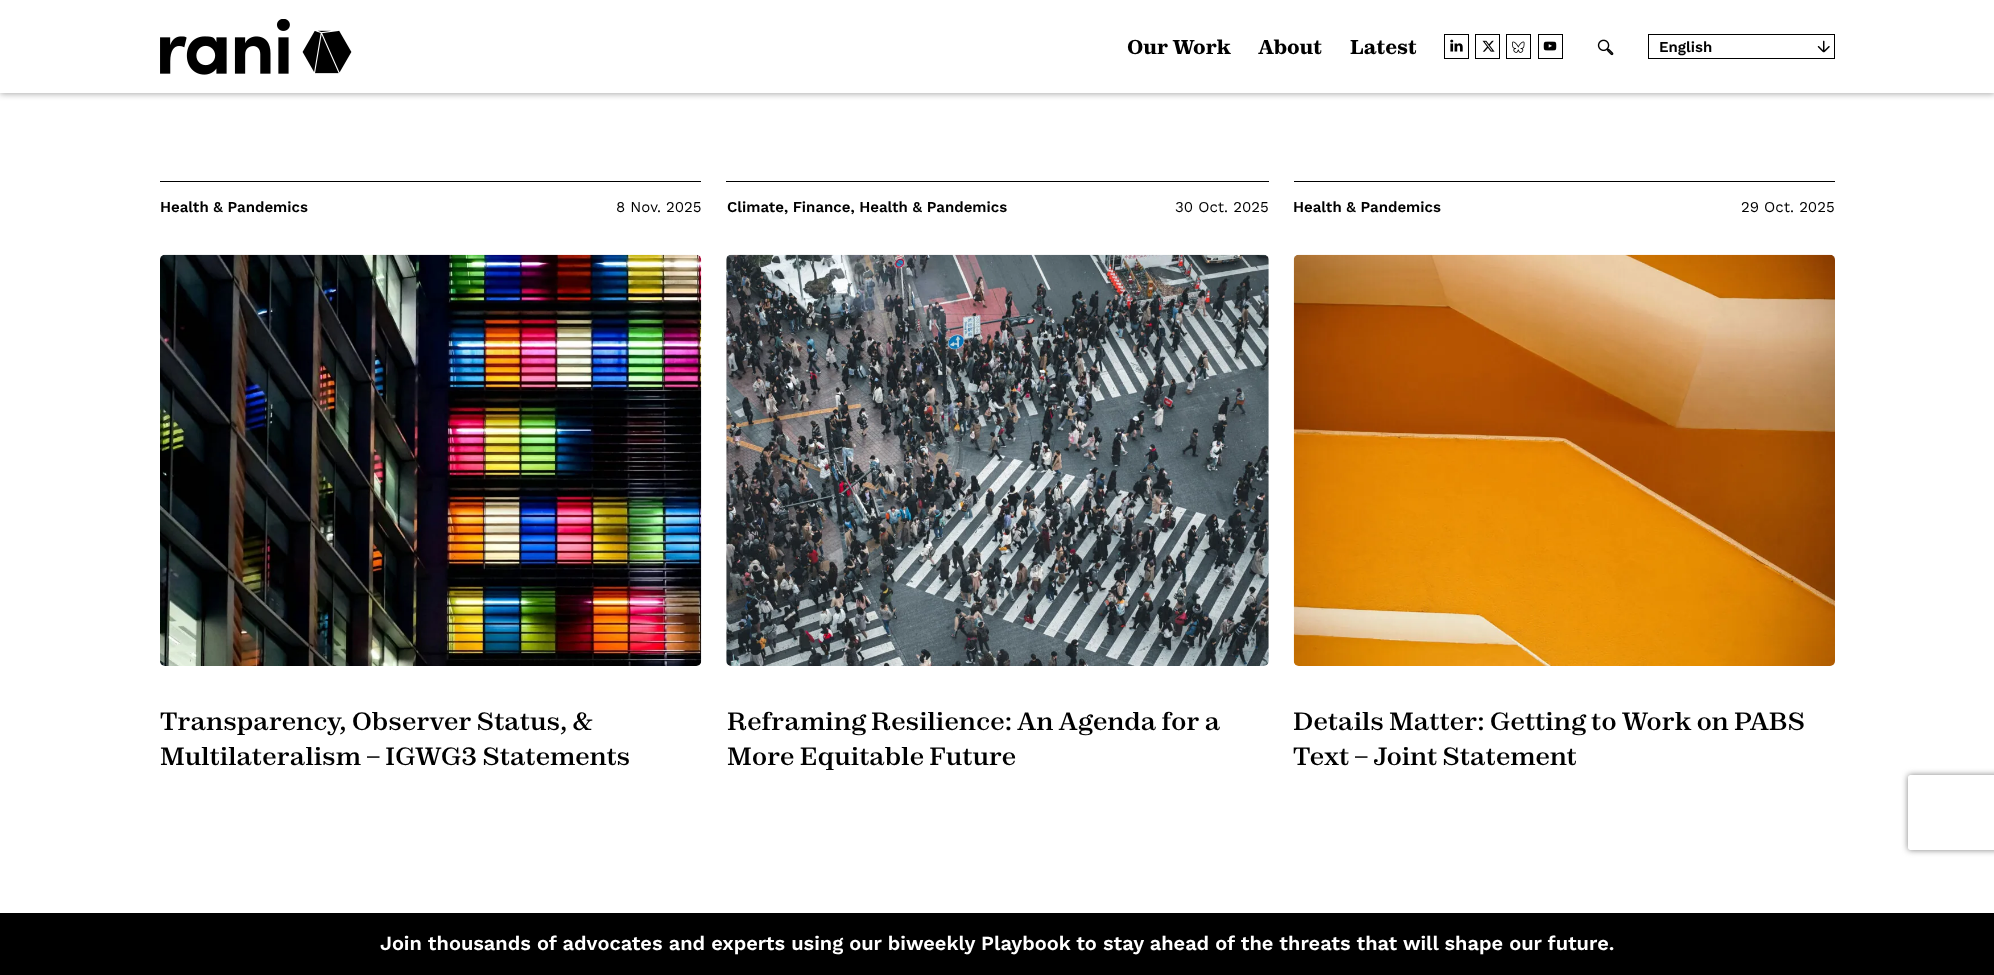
<!DOCTYPE html>
<meta charset="utf-8">
<style>body { margin: 0 } canvas { display: block }</style>
<canvas id="canvas" width="1994" height="975"></canvas>
<img id="img1" src="img_01.png" hidden>
<img id="img2" src="img_02.png" hidden>
<img id="img3" src="img_03.png" hidden>
<img id="img4" src="img_04.png" hidden>
<img id="img5" src="img_05.png" hidden>
<img id="img6" src="img_06.png" hidden>
<img id="img7" src="img_07.png" hidden>
<img id="img8" src="img_08.png" hidden>
<img id="img9" src="img_09.png" hidden>
<img id="img10" src="img_10.png" hidden>
<script>
window.onload = function () {
	const canvas = document.getElementById("canvas");
	const ctx = canvas.getContext("2d");
	ctx.miterLimit = 4;
	ctx.fontKerning = "normal";
	function txt(s, x, y) {
		ctx.fillText(s, x, y);
	}
	function fill(x, y, w, h) {
		ctx.fillRect(x, y, w, h);
	}
	function img(id, x, y, w, h) {
		ctx.drawImage(document.getElementById(id), x, y, w, h);
	}

	ctx.fillStyle = "#FFFFFF";
	fill(0, 0, 1994, 975);
	ctx.save();
	ctx.beginPath();
	ctx.moveTo(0, 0);
	ctx.lineTo(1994, 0);
	ctx.lineTo(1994, 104);
	ctx.lineTo(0, 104);
	ctx.closePath();
	ctx.moveTo(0, 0);
	ctx.lineTo(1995, 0);
	ctx.lineTo(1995, 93);
	ctx.lineTo(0, 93);
	ctx.closePath();
	ctx.clip("evenodd");
	ctx.fillStyle = "rgba(0, 0, 0, 0.33)";
	ctx.filter = "blur(3px)";
	ctx.beginPath();
	ctx.rect(0, 1, 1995, 93);
	ctx.fill();
	ctx.filter = "none";
	ctx.restore();
	img("img1", 160, 19, 192, 56);
	ctx.strokeStyle = "#000000";
	ctx.strokeRect(1444.5, 34.5, 24, 24);
	img("img2", 1450, 39, 13, 13);
	ctx.strokeRect(1475.5, 34.5, 24, 24);
	img("img3", 1482, 40, 13, 12);
	ctx.strokeRect(1506.5, 34.5, 24, 24);
	img("img4", 1512, 41, 13, 12);
	ctx.strokeRect(1538.5, 34.5, 24, 24);
	img("img5", 1543, 41, 14, 10);
	img("img6", 1597, 39, 17, 17);
	ctx.strokeRect(1648.5, 34.5, 186, 24);
	img("img7", 1817, 40, 13, 13);
	ctx.fillStyle = "#000000";
	fill(160, 181, 541, 1);
	img("img8", 160, 254, 542, 412);
	fill(726, 181, 543, 1);
	img("img9", 726, 254, 543, 412);
	fill(1294, 181, 541, 1);
	img("img10", 1293, 254, 542, 412);
	ctx.save();
	ctx.beginPath();
	ctx.moveTo(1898, 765);
	ctx.lineTo(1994, 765);
	ctx.lineTo(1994, 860);
	ctx.lineTo(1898, 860);
	ctx.closePath();
	ctx.moveTo(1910.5, 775);
	ctx.lineTo(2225.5, 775);
	ctx.bezierCurveTo(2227, 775, 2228, 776, 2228, 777.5);
	ctx.lineTo(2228, 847.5);
	ctx.bezierCurveTo(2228, 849, 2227, 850, 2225.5, 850);
	ctx.lineTo(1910.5, 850);
	ctx.bezierCurveTo(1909, 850, 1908, 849, 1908, 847.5);
	ctx.lineTo(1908, 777.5);
	ctx.bezierCurveTo(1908, 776, 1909, 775, 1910.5, 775);
	ctx.closePath();
	ctx.clip("evenodd");
	ctx.fillStyle = "#808080";
	ctx.filter = "blur(3px)";
	ctx.beginPath();
	ctx.roundRect(1908, 775, 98, 75, 2.5);
	ctx.fill();
	ctx.filter = "none";
	ctx.restore();
	fill(0, 913, 1994, 62);
	ctx.font = "bold 20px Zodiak";
	txt("Our Work", 1127, 54);
	txt("About", 1258, 54);
	txt("Latest", 1350, 54);
	ctx.font = "600 15px Work Sans";
	txt("English", 1659, 52);
	txt("Health & Pandemics", 160, 212);
	ctx.font = "15px Work Sans";
	txt("8 Nov. 2025", 616, 212);
	ctx.font = "500 25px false";
	txt("Transparency, Observer Status, &", 160, 730);
	txt("Multilateralism – IGWG3 Statements", 160, 765);
	ctx.font = "600 15px Work Sans";
	txt("Climate, Finance, Health & Pandemics", 727, 212);
	ctx.font = "15px Work Sans";
	txt("30 Oct. 2025", 1175, 212);
	ctx.font = "500 25px false";
	txt("Reframing Resilience: An Agenda for a", 727, 730);
	txt("More Equitable Future", 727, 765);
	ctx.font = "600 15px Work Sans";
	txt("Health & Pandemics", 1293, 212);
	ctx.font = "15px Work Sans";
	txt("29 Oct. 2025", 1741, 212);
	ctx.font = "500 25px false";
	txt("Details Matter: Getting to Work on PABS", 1293, 730);
	txt("Text – Joint Statement", 1293, 765);
	ctx.font = "600 20px Work Sans";
	ctx.fillStyle = "#FFFFFF";
	txt("Join thousands of advocates and experts using our biweekly Playbook to stay ahead of the threats that will shape our future.", 380, 950);
};
</script>
